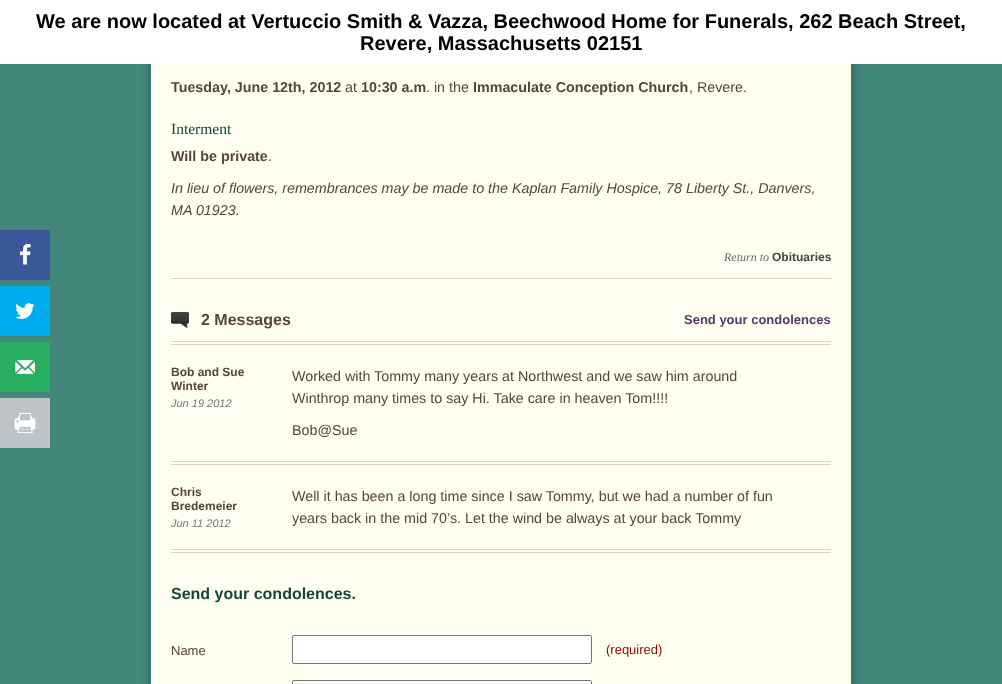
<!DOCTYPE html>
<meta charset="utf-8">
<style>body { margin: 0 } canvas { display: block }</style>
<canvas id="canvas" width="1002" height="684"></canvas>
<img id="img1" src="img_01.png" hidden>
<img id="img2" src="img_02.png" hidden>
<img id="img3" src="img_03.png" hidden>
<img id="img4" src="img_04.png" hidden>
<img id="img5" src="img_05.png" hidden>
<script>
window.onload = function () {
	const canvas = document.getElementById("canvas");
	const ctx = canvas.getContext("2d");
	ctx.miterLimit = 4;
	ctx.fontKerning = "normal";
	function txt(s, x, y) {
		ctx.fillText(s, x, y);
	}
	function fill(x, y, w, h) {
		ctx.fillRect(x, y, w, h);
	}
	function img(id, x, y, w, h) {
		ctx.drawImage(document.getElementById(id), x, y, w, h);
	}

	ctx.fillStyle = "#43867C";
	fill(0, 0, 1002, 684);
	ctx.fillStyle = "rgba(0, 0, 0, 0.3)";
	ctx.filter = "blur(5px)";
	ctx.beginPath();
	ctx.roundRect(151, -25, 700, 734, 10);
	ctx.fill();
	ctx.filter = "none";
	ctx.fillStyle = "#FFFFFF";
	fill(0, 0, 1002, 64);
	ctx.fillStyle = "#3A579A";
	fill(0, 230, 50, 50);
	img("img1", 19, 244, 12, 21);
	ctx.fillStyle = "#00ABF0";
	fill(0, 286, 50, 50);
	img("img2", 15, 303, 20, 16);
	ctx.fillStyle = "#27AE60";
	fill(0, 342, 50, 50);
	img("img3", 15, 360, 20, 14);
	ctx.fillStyle = "#BDC3C7";
	fill(0, 398, 50, 50);
	img("img4", 14, 412, 22, 22);
	ctx.fillStyle = "#FFFFF2";
	fill(151, 64, 700, 620);
	ctx.fillStyle = "#D9D4C7";
	fill(171, 278, 660, 1);
	fill(171, 341, 660, 1);
	fill(171, 344, 660, 1);
	img("img5", 171, 312, 19, 17);
	fill(171, 461, 660, 1);
	fill(171, 464, 660, 1);
	fill(171, 549, 660, 1);
	fill(171, 552, 660, 1);
	ctx.fillStyle = "#FFFFFF";
	ctx.beginPath();
	ctx.roundRect(292.5, 635.5, 299, 28, 1.5);
	ctx.fill();
	ctx.strokeStyle = "#767676";
	ctx.stroke();
	ctx.beginPath();
	ctx.roundRect(292.5, 680.5, 299, 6, 1.5);
	ctx.fill();
	ctx.stroke();
	ctx.font = "bold 20px Liberation Sans";
	ctx.fillStyle = "#000000";
	txt("We are now located at Vertuccio Smith & Vazza, Beechwood Home for Funerals, 262 Beach Street,", 36, 28);
	txt("Revere, Massachusetts 02151", 360, 50);
	ctx.font = "bold 14.3px Liberation Sans";
	ctx.fillStyle = "#554635";
	txt("Tuesday, June 12th, 2012", 171, 92);
	ctx.font = "14.3px Liberation Sans";
	txt("at", 345, 92);
	ctx.font = "bold 14.3px Liberation Sans";
	txt("10:30 a.m", 361, 92);
	ctx.font = "14.3px Liberation Sans";
	txt(". in the", 426, 92);
	ctx.font = "bold 14.3px Liberation Sans";
	txt("Immaculate Conception Church", 473, 92);
	ctx.font = "14.3px Liberation Sans";
	txt(", Revere.", 689, 92);
	ctx.font = "15.5px Liberation Serif";
	ctx.fillStyle = "#14473C";
	txt("Interment", 171, 134);
	ctx.font = "bold 14.3px Liberation Sans";
	ctx.fillStyle = "#554635";
	txt("Will be private", 171, 161);
	ctx.font = "14.3px Liberation Sans";
	txt(".", 268, 161);
	ctx.font = "italic 14.3px Liberation Sans";
	txt("In lieu of flowers, remembrances may be made to the Kaplan Family Hospice, 78 Liberty St., Danvers,", 171, 193);
	txt("MA 01923.", 171, 215);
	ctx.font = "italic 12px Liberation Serif";
	ctx.fillStyle = "#666666";
	txt("Return to", 724, 261);
	ctx.font = "bold 12px Liberation Sans";
	ctx.fillStyle = "#444444";
	txt("Obituaries", 772, 261);
	ctx.font = "bold 16px Liberation Sans";
	ctx.fillStyle = "#554635";
	txt("2 Messages", 201, 325);
	ctx.font = "bold 13px Liberation Sans";
	ctx.fillStyle = "#553A6C";
	txt("Send your condolences", 684, 324);
	ctx.font = "bold 12px Liberation Sans";
	ctx.fillStyle = "#554635";
	txt("Bob and Sue", 171, 376);
	txt("Winter", 171, 390);
	ctx.font = "italic 11px Liberation Sans";
	ctx.fillStyle = "#777777";
	txt("Jun 19 2012", 171, 407);
	ctx.font = "14.3px Liberation Sans";
	ctx.fillStyle = "#554635";
	txt("Worked with Tommy many years at Northwest and we saw him around", 292, 381);
	txt("Winthrop many times to say Hi. Take care in heaven Tom!!!!", 292, 403);
	txt("Bob@Sue", 292, 435);
	ctx.font = "bold 12px Liberation Sans";
	txt("Chris", 171, 496);
	txt("Bredemeier", 171, 510);
	ctx.font = "italic 11px Liberation Sans";
	ctx.fillStyle = "#777777";
	txt("Jun 11 2012", 171, 527);
	ctx.font = "14.3px Liberation Sans";
	ctx.fillStyle = "#554635";
	txt("Well it has been a long time since I saw Tommy, but we had a number of fun", 292, 501);
	txt("years back in the mid 70’s. Let the wind be always at your back Tommy", 292, 523);
	ctx.font = "bold 16px Liberation Sans";
	ctx.fillStyle = "#14473C";
	txt("Send your condolences.", 171, 599);
	ctx.font = "13px Liberation Sans";
	ctx.fillStyle = "#554635";
	txt("Name", 171, 655);
	ctx.fillStyle = "#990000";
	txt("(required)", 606, 654);
};
</script>
